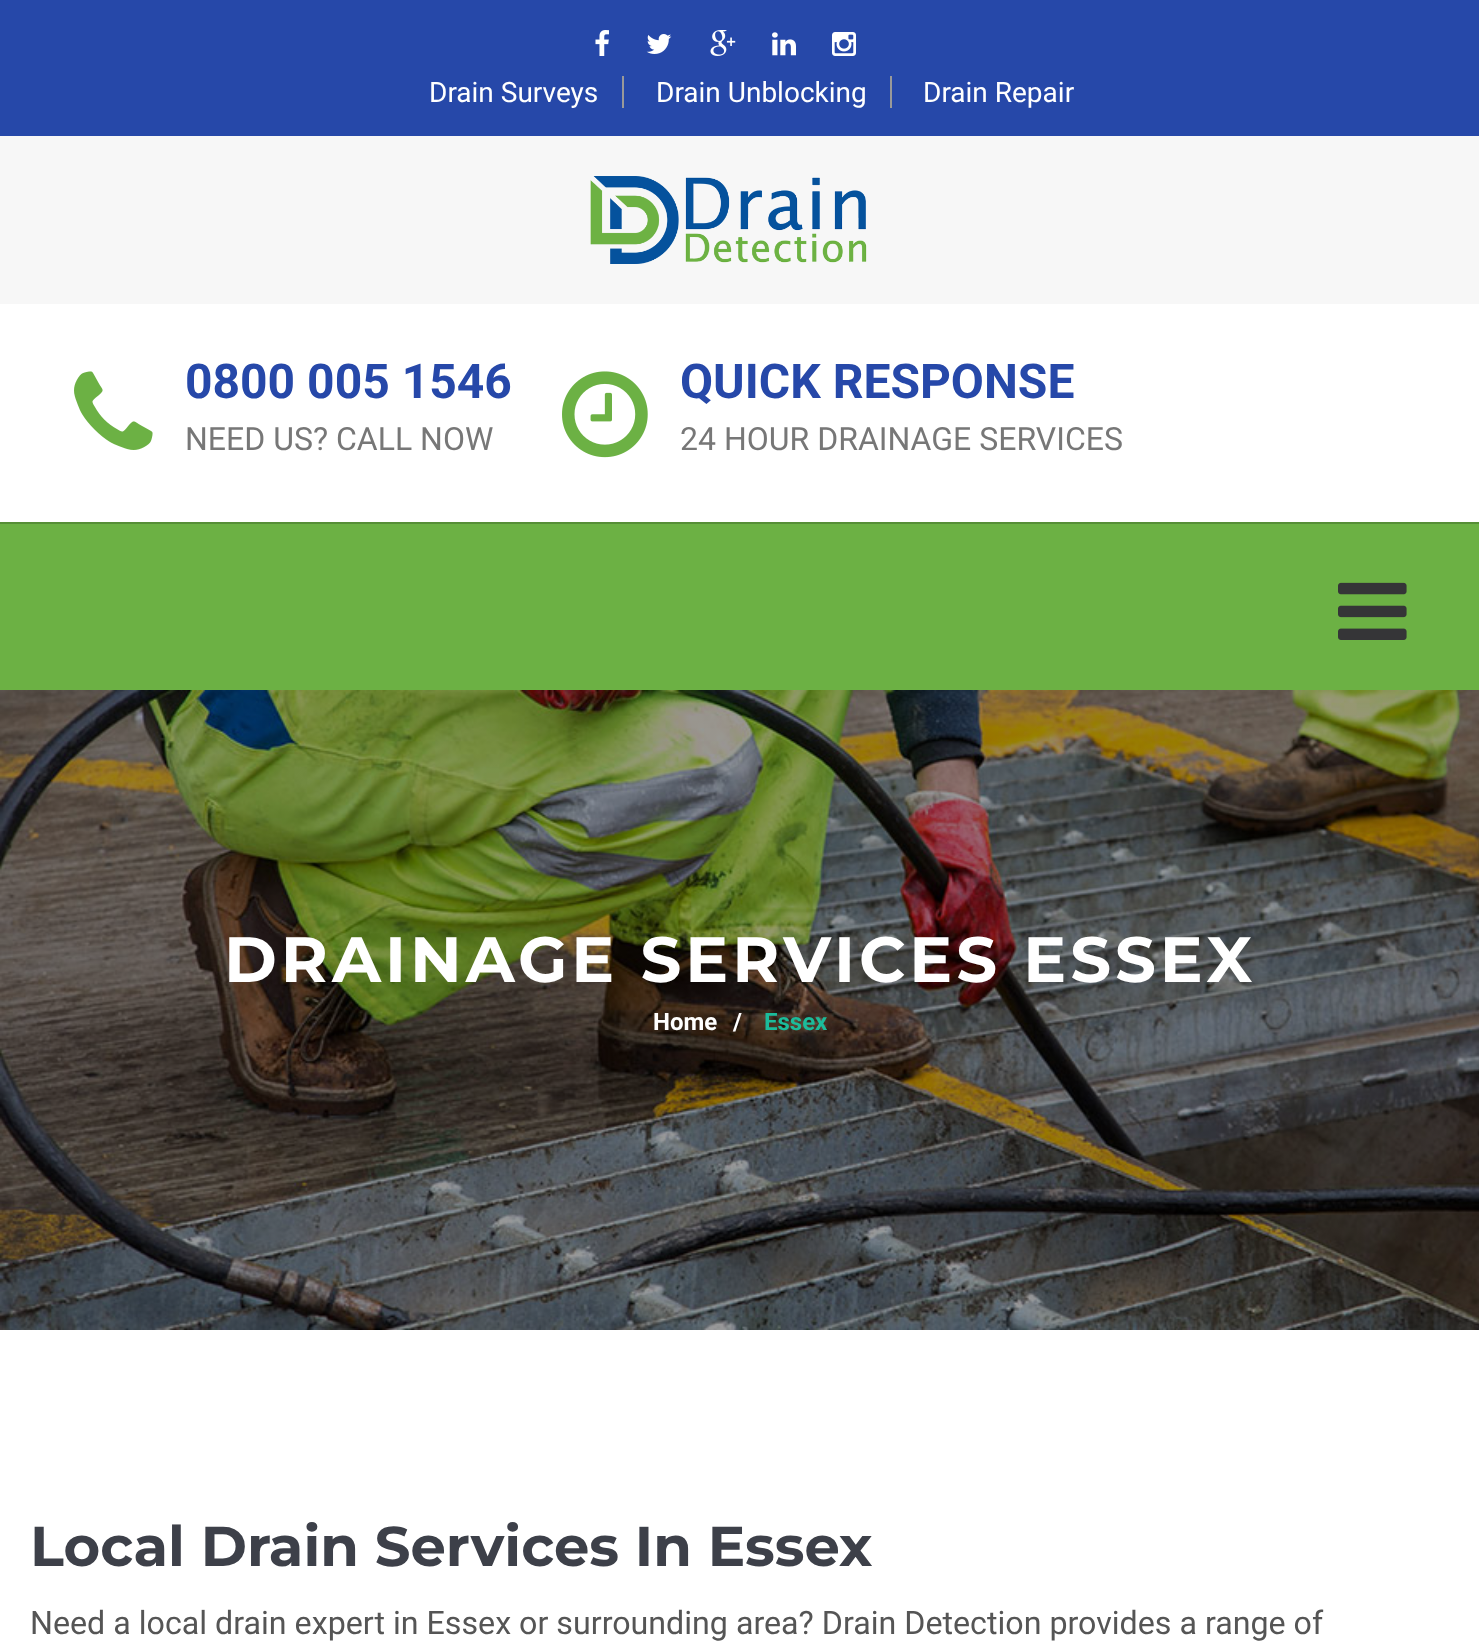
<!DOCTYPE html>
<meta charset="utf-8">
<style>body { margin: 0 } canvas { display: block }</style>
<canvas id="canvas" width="1479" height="1642"></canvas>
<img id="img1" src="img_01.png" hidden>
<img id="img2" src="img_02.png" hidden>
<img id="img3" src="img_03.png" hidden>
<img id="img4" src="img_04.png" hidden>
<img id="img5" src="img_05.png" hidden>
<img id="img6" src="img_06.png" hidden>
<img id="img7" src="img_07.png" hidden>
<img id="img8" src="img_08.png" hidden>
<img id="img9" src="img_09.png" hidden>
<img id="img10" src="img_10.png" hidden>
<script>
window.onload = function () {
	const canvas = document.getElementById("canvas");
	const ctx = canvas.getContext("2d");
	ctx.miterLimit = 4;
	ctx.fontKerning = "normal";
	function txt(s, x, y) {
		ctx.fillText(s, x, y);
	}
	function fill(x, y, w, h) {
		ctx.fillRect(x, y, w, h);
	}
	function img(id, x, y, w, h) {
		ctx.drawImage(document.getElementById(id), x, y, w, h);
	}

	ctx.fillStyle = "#FFFFFF";
	fill(0, 0, 1479, 1642);
	ctx.fillStyle = "#2648A9";
	fill(0, 0, 1479, 136);
	img("img1", 595, 30, 14, 26);
	img("img2", 646, 34, 26, 20);
	img("img3", 710, 30, 26, 26);
	img("img4", 772, 32, 24, 24);
	img("img5", 832, 32, 24, 24);
	ctx.fillStyle = "#999999";
	fill(622, 76, 2, 32);
	fill(890, 76, 2, 32);
	ctx.fillStyle = "#F7F7F7";
	fill(0, 136, 1479, 168);
	img("img6", 590, 176, 277, 88);
	img("img7", 74, 371, 79, 79);
	img("img8", 562, 371, 86, 87);
	ctx.fillStyle = "#6CB144";
	fill(0, 524, 1479, 166);
	ctx.fillStyle = "#568E36";
	fill(0, 522, 1479, 2);
	img("img9", 1338, 582, 69, 58);
	img("img10", 0, 690, 1479, 640);
	ctx.font = "28px Roboto";
	ctx.fillStyle = "#FFFFFF";
	txt("Drain Surveys", 429, 102);
	txt("Drain Unblocking", 656, 102);
	txt("Drain Repair", 923, 102);
	ctx.font = "bold 48px Roboto";
	ctx.fillStyle = "#2648A9";
	txt("0800 005 1546", 185, 398);
	ctx.font = "32px Roboto";
	ctx.fillStyle = "#777777";
	txt("NEED US? CALL NOW", 185, 450);
	ctx.font = "bold 48px Roboto";
	ctx.fillStyle = "#2648A9";
	txt("QUICK RESPONSE", 680, 398);
	ctx.font = "32px Roboto";
	ctx.fillStyle = "#777777";
	txt("24 HOUR DRAINAGE SERVICES", 680, 450);
	ctx.letterSpacing = "4px";
	ctx.font = "bold 64px Montserrat";
	ctx.fillStyle = "#FFFFFF";
	txt("DRAINAGE SERVICES ESSEX", 224, 982);
	ctx.letterSpacing = "0px";
	ctx.font = "bold 24px Roboto";
	txt("Home", 653, 1030);
	txt("/", 733, 1030);
	ctx.fillStyle = "#1BBC9B";
	txt("Essex", 764, 1030);
	ctx.font = "bold 56px Montserrat";
	ctx.fillStyle = "#3D4049";
	txt("Local Drain Services In Essex", 30, 1566);
	ctx.font = "32.2px Roboto";
	ctx.fillStyle = "#555555";
	txt("Need a local drain expert in Essex or surrounding area? Drain Detection provides a range of", 30, 1634);
};
</script>
